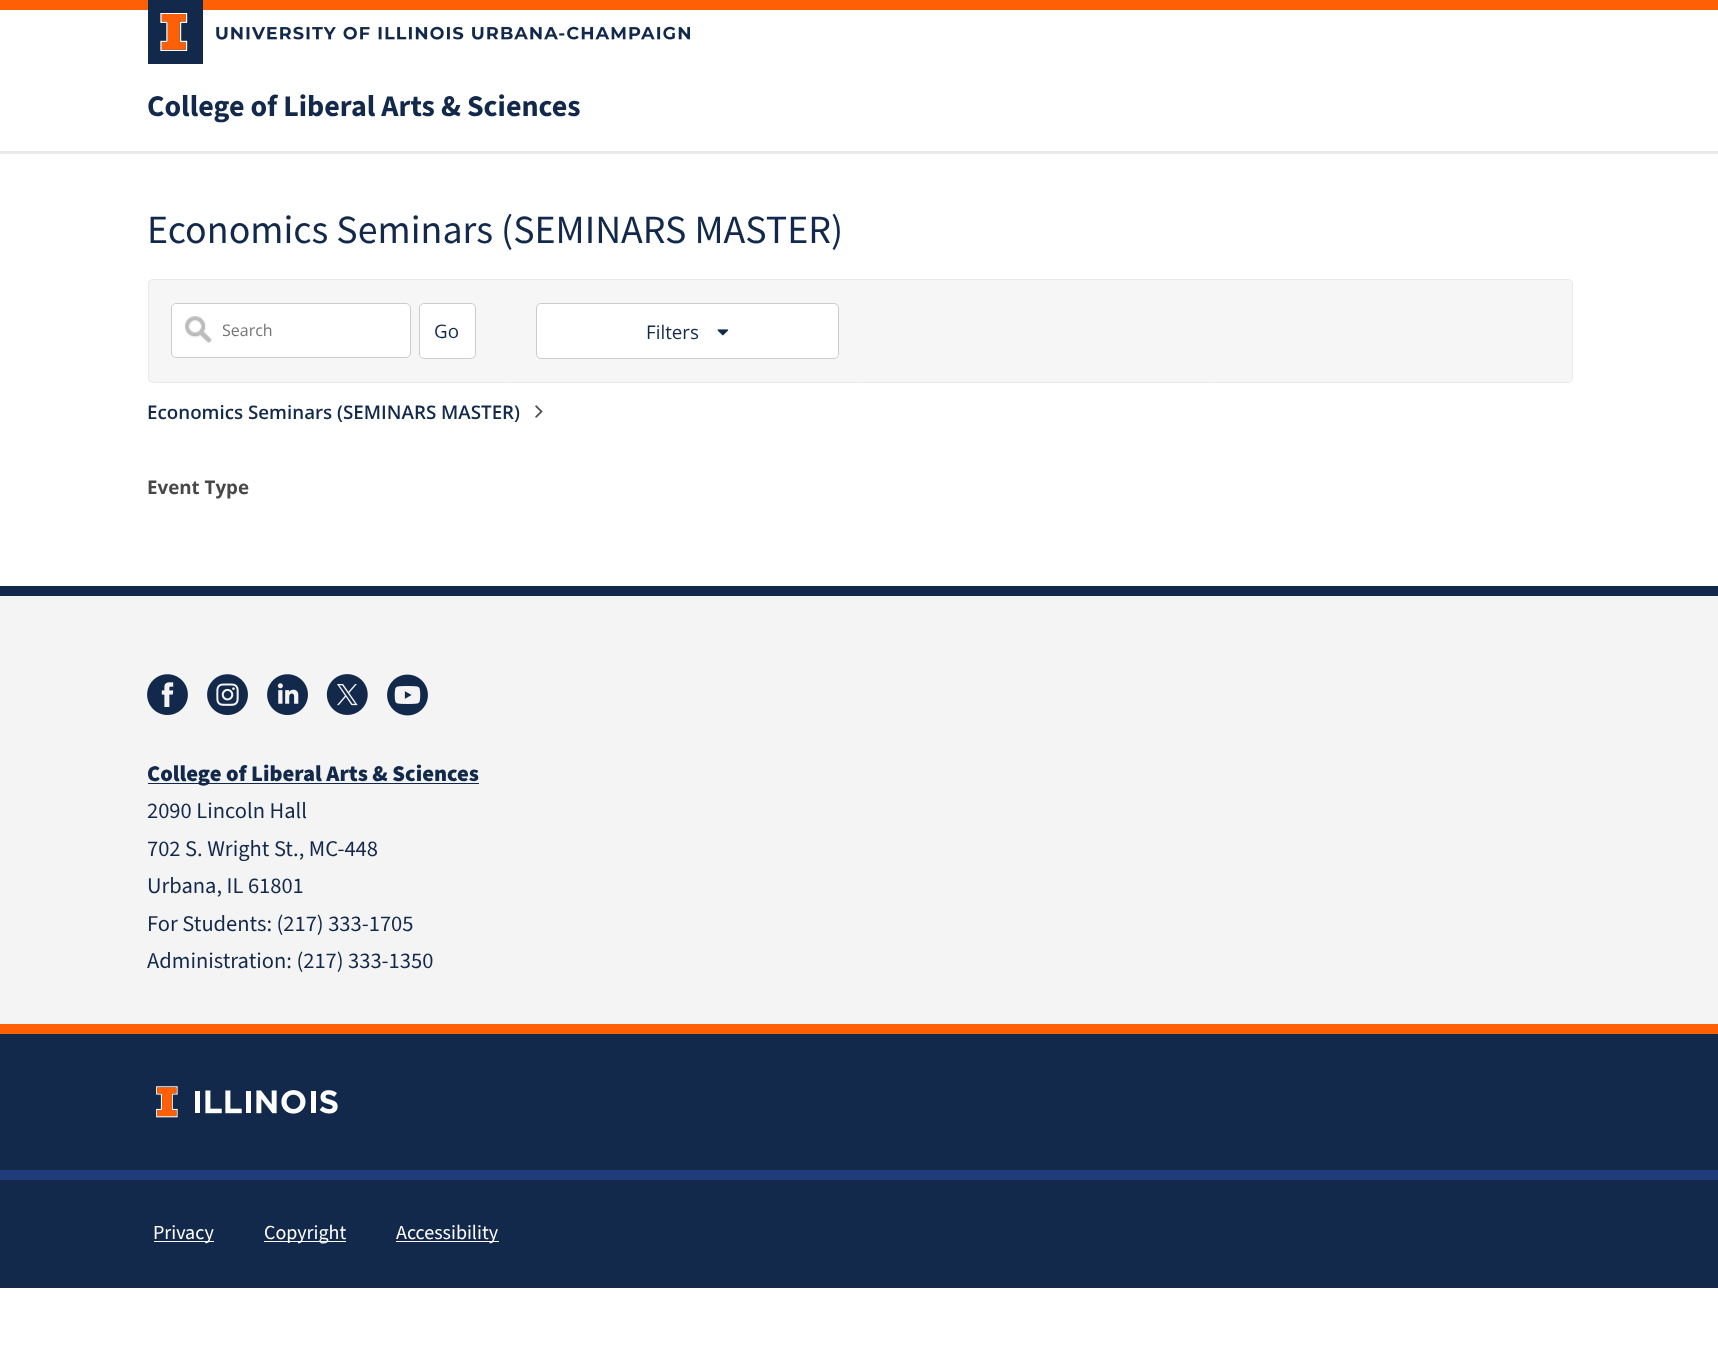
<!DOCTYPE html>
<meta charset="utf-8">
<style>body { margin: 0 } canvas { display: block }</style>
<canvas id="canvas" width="1718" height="1355"></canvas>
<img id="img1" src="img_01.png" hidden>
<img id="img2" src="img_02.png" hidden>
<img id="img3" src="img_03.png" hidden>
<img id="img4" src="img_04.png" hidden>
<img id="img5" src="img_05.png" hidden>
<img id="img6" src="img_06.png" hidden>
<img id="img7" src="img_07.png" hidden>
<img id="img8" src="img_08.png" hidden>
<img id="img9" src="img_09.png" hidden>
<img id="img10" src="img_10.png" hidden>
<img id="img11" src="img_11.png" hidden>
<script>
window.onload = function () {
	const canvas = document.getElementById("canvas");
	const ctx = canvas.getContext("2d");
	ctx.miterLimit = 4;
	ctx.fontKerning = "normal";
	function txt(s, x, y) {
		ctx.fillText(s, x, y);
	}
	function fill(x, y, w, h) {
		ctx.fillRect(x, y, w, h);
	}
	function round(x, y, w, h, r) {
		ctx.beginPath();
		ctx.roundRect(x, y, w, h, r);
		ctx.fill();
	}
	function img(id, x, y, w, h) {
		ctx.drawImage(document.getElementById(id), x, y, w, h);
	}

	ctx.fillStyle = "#FFFFFF";
	fill(0, 0, 1718, 1355);
	ctx.fillStyle = "#E8E9EB";
	fill(0, 151, 1718, 3);
	ctx.fillStyle = "#FF5F05";
	fill(0, 0, 1718, 10);
	ctx.fillStyle = "#13294B";
	fill(148, 0, 55, 64);
	img("img1", 160, 13, 28, 38);
	img("img2", 216, 26, 474, 14);
	ctx.fillStyle = "#F6F6F6";
	ctx.beginPath();
	ctx.roundRect(148.5, 279.5, 1424, 103, 4.5);
	ctx.fill();
	ctx.strokeStyle = "#E9E9E9";
	ctx.stroke();
	ctx.fillStyle = "#FFFFFF";
	round(171, 303, 240, 55, 5);
	img("img3", 185, 316, 27, 27);
	ctx.beginPath();
	ctx.roundRect(171.5, 303.5, 239, 54, 4.5);
	ctx.strokeStyle = "#CCCCCC";
	ctx.stroke();
	ctx.beginPath();
	ctx.roundRect(419.5, 303.5, 56, 55, 4.5);
	ctx.fill();
	ctx.stroke();
	ctx.beginPath();
	ctx.roundRect(536.5, 303.5, 302, 55, 4.5);
	ctx.fill();
	ctx.stroke();
	img("img4", 717, 329, 12, 7);
	img("img5", 535, 405, 8, 13);
	ctx.fillStyle = "#F4F4F4";
	fill(0, 596, 1718, 428);
	ctx.fillStyle = "#13294B";
	fill(0, 586, 1718, 10);
	img("img6", 147, 674, 41, 41);
	img("img7", 207, 674, 41, 42);
	img("img8", 267, 674, 41, 42);
	img("img9", 326, 674, 42, 41);
	img("img10", 387, 674, 41, 42);
	fill(148, 783, 331, 1);
	fill(0, 1034, 1718, 136);
	ctx.fillStyle = "#FF5F05";
	fill(0, 1024, 1718, 10);
	img("img11", 156, 1086, 182, 32);
	ctx.fillStyle = "#13294B";
	fill(0, 1180, 1718, 108);
	ctx.fillStyle = "#1F3D7B";
	fill(0, 1170, 1718, 10);
	ctx.fillStyle = "#FFFFFF";
	fill(154, 1241, 60, 1);
	fill(264, 1241, 82, 1);
	fill(396, 1241, 103, 1);
	ctx.font = "bold 30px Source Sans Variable";
	ctx.fillStyle = "#13294B";
	txt("College of Liberal Arts & Sciences", 147, 116);
	ctx.font = "40px Source Sans Pro";
	txt("Economics Seminars (SEMINARS MASTER)", 147, 243);
	ctx.save();
	ctx.beginPath();
	ctx.rect(223, 319, 162, 22);
	ctx.clip();
	ctx.font = "16px Open Sans";
	ctx.fillStyle = "#757575";
	txt("Search", 222, 336);
	ctx.restore();
	ctx.font = "18.75px Open Sans";
	txt("Go", 434, 338);
	txt("Filters", 646, 339);
	ctx.font = "600 18.75px Open Sans";
	txt("Economics Seminars (SEMINARS MASTER)", 147, 419);
	ctx.font = "bold 18.75px Open Sans";
	ctx.fillStyle = "#48484A";
	txt("Event Type", 147, 494);
	ctx.font = "900 22.5px Source Sans Variable";
	ctx.fillStyle = "#13294B";
	txt("College of Liberal Arts & Sciences", 147, 781);
	ctx.font = "22.5px Source Sans Variable";
	txt("2090 Lincoln Hall", 147, 818);
	txt("702 S. Wright St., MC-448", 147, 856);
	txt("Urbana, IL 61801", 147, 893);
	txt("For Students: (217) 333-1705", 147, 931);
	txt("Administration: (217) 333-1350", 147, 968);
	ctx.font = "20px Source Sans Variable";
	ctx.fillStyle = "#FFFFFF";
	txt("Privacy", 153, 1239);
	txt("Copyright", 264, 1239);
	txt("Accessibility", 396, 1239);
};
</script>
